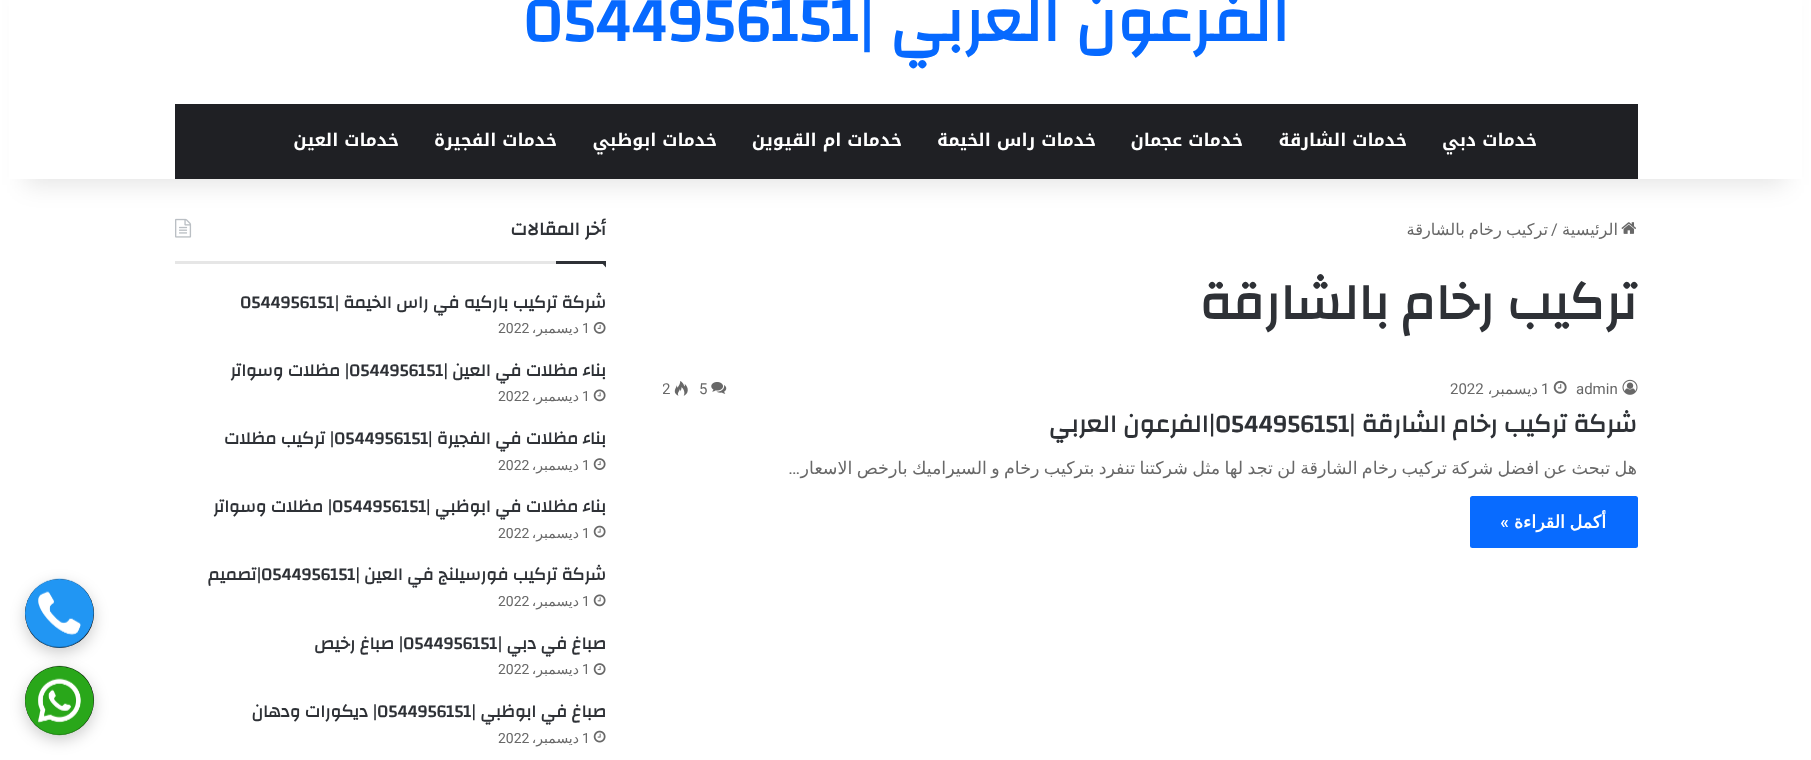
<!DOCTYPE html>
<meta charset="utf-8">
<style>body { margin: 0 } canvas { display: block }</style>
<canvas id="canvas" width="1811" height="760"></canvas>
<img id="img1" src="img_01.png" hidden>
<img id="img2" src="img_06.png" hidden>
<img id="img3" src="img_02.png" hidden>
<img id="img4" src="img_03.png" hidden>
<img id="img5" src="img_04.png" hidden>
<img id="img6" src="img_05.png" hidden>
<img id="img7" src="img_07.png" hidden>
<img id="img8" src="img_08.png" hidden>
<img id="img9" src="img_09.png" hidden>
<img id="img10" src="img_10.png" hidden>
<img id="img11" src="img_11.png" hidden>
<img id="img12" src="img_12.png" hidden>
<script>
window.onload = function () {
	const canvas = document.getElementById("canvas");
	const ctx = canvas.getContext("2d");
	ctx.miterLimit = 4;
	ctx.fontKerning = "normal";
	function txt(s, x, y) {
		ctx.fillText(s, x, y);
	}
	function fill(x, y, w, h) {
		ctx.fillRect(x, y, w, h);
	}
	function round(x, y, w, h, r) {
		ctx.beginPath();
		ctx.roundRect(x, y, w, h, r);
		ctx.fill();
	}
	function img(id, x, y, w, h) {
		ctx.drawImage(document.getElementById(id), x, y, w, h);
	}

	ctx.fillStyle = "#FFFFFF";
	fill(0, 0, 1811, 760);
	img("img1", 1621, 222, 15, 12);
	img("img2", 175, 218, 17, 20);
	ctx.fillStyle = "rgba(0, 0, 0, 0.1)";
	ctx.filter = "blur(12.5px)";
	ctx.beginPath();
	ctx.rect(25, -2, 1761, 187);
	ctx.fill();
	ctx.filter = "none";
	ctx.fillStyle = "#FFFFFF";
	fill(9, 0, 1793, 179);
	ctx.fillStyle = "#1F2024";
	fill(175, 104, 1463, 75);
	img("img3", 1622, 379, 16, 16);
	img("img4", 1553, 380, 14, 14);
	img("img5", 711, 382, 16, 12);
	img("img6", 674, 381, 14, 15);
	ctx.fillStyle = "#086BFF";
	round(1470, 496, 168, 52, 2.5);
	ctx.fillStyle = "#E6E6E6";
	fill(175, 261, 381, 3);
	ctx.fillStyle = "#2E3136";
	ctx.beginPath();
	ctx.moveTo(600, 261);
	ctx.lineTo(606, 261);
	ctx.lineTo(606, 267.5);
	ctx.closePath();
	ctx.fill();
	fill(556, 261, 50, 3);
	img("img7", 593, 322, 13, 12);
	img("img8", 593, 389, 13, 13);
	img("img9", 593, 458, 13, 12);
	img("img10", 593, 525, 13, 13);
	img("img8", 593, 594, 13, 13);
	img("img9", 593, 663, 13, 12);
	img("img10", 593, 730, 13, 13);
	ctx.fillStyle = "rgba(0, 0, 0, 0.2)";
	ctx.filter = "blur(7.5px)";
	ctx.beginPath();
	ctx.roundRect(25, 584, 69, 69, 34.5);
	ctx.fill();
	ctx.filter = "none";
	ctx.fillStyle = "#000000";
	ctx.beginPath();
	ctx.arc(59.5, 613.5, 34.5, 0, Math.PI * 2);
	ctx.fill();
	img("img11", 25, 578, 69, 70);
	ctx.fillStyle = "rgba(0, 0, 0, 0.2)";
	ctx.filter = "blur(7.5px)";
	ctx.beginPath();
	ctx.roundRect(25, 671, 69, 69, 34.5);
	ctx.fill();
	ctx.filter = "none";
	ctx.fillStyle = "#000000";
	ctx.beginPath();
	ctx.arc(59.5, 700.5, 34.5, 0, Math.PI * 2);
	ctx.fill();
	img("img12", 25, 665, 69, 71);
	ctx.direction = "rtl";
	ctx.font = "bold 62.5px Changa";
	ctx.fillStyle = "#0669FF";
	txt("الفرعون العربي |", 1289, 41);
	ctx.direction = "ltr";
	txt("0544956151", 523, 41);
	ctx.direction = "rtl";
	ctx.font = "bold 17.5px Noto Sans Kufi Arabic";
	ctx.fillStyle = "#FFFFFF";
	txt("خدمات دبي", 1537, 146);
	txt("خدمات الشارقة", 1407, 146);
	txt("خدمات عجمان", 1243, 146);
	txt("خدمات راس الخيمة", 1096, 146);
	txt("خدمات ام القيوين", 902, 146);
	txt("خدمات ابوظبي", 717, 146);
	txt("خدمات الفجيرة", 557, 146);
	txt("خدمات العين", 399, 146);
	ctx.font = "16.25px DejaVu Sans";
	ctx.fillStyle = "#686868";
	txt("الرئيسية", 1618, 235);
	ctx.direction = "ltr";
	ctx.font = "16.25px Roboto";
	txt("/", 1551, 235);
	ctx.wordSpacing = "-1px";
	ctx.direction = "rtl";
	ctx.font = "16.25px DejaVu Sans";
	txt("تركيب رخام بالشارقة", 1548, 235);
	ctx.wordSpacing = "0px";
	ctx.font = "bold 51.25px Changa";
	ctx.fillStyle = "#2E3136";
	txt("تركيب رخام بالشارقة", 1637, 319);
	ctx.direction = "ltr";
	ctx.font = "15px Roboto";
	ctx.fillStyle = "#686868";
	txt("admin", 1576, 394);
	txt("1", 1541, 394);
	ctx.direction = "rtl";
	ctx.font = "15px DejaVu Sans";
	txt("ديسمبر،", 1538, 394);
	ctx.direction = "ltr";
	ctx.font = "15px Roboto";
	txt("2022", 1450, 394);
	txt("5", 699, 394);
	ctx.save();
	ctx.beginPath();
	ctx.rect(663, 376, 975, 27);
	ctx.clip();
	txt("2", 662, 394);
	ctx.restore();
	ctx.direction = "rtl";
	ctx.font = "bold 25px Changa";
	ctx.fillStyle = "#2E3136";
	txt("شركة تركيب رخام الشارقة |", 1637, 432);
	ctx.direction = "ltr";
	txt("0544956151", 1215, 432);
	ctx.direction = "rtl";
	txt("|الفرعون العربي", 1215, 432);
	ctx.wordSpacing = "-1.25px";
	ctx.font = "17.5px DejaVu Sans";
	ctx.fillStyle = "#686868";
	txt("هل تبحث عن افضل شركة تركيب رخام الشارقة لن تجد لها مثل شركتنا تنفرد بتركيب رخام و السيراميك بارخص الاسعار", 1637, 474);
	ctx.wordSpacing = "0px";
	ctx.font = "17.5px Roboto";
	txt("…", 800, 474);
	ctx.wordSpacing = "-1px";
	ctx.font = "bold 17.5px DejaVu Sans";
	ctx.fillStyle = "#FFFFFF";
	txt("أكمل القراءة", 1606, 528);
	ctx.wordSpacing = "0px";
	ctx.font = "600 17.5px Roboto";
	txt("»", 1509, 528);
	ctx.font = "bold 18.75px Changa";
	ctx.fillStyle = "#2E3136";
	txt("أخر المقالات", 606, 235);
	ctx.font = "bold 17.5px Changa";
	txt("شركة تركيب باركيه في راس الخيمة |", 606, 308);
	ctx.direction = "ltr";
	txt("0544956151", 240, 308);
	ctx.font = "14px Roboto";
	ctx.fillStyle = "#686868";
	txt("1", 582, 333);
	ctx.direction = "rtl";
	ctx.font = "14px DejaVu Sans";
	txt("ديسمبر،", 579, 333);
	ctx.direction = "ltr";
	ctx.font = "14px Roboto";
	txt("2022", 498, 333);
	ctx.direction = "rtl";
	ctx.font = "bold 17.5px Changa";
	ctx.fillStyle = "#2E3136";
	txt("بناء مظلات في العين |", 606, 376);
	ctx.direction = "ltr";
	txt("0544956151", 349, 376);
	ctx.direction = "rtl";
	txt("| مظلات وسواتر", 349, 376);
	ctx.direction = "ltr";
	ctx.font = "14px Roboto";
	ctx.fillStyle = "#686868";
	txt("1", 582, 401);
	ctx.direction = "rtl";
	ctx.font = "14px DejaVu Sans";
	txt("ديسمبر،", 579, 401);
	ctx.direction = "ltr";
	ctx.font = "14px Roboto";
	txt("2022", 498, 401);
	ctx.direction = "rtl";
	ctx.font = "bold 17.5px Changa";
	ctx.fillStyle = "#2E3136";
	txt("بناء مظلات في الفجيرة |", 606, 444);
	ctx.direction = "ltr";
	txt("0544956151", 334, 444);
	ctx.direction = "rtl";
	txt("| تركيب مظلات", 334, 444);
	ctx.direction = "ltr";
	ctx.font = "14px Roboto";
	ctx.fillStyle = "#686868";
	txt("1", 582, 470);
	ctx.direction = "rtl";
	ctx.font = "14px DejaVu Sans";
	txt("ديسمبر،", 579, 470);
	ctx.direction = "ltr";
	ctx.font = "14px Roboto";
	txt("2022", 498, 470);
	ctx.direction = "rtl";
	ctx.font = "bold 17.5px Changa";
	ctx.fillStyle = "#2E3136";
	txt("بناء مظلات في ابوظبي |", 606, 512);
	ctx.direction = "ltr";
	txt("0544956151", 332, 512);
	ctx.direction = "rtl";
	txt("| مظلات وسواتر", 332, 512);
	ctx.direction = "ltr";
	ctx.font = "14px Roboto";
	ctx.fillStyle = "#686868";
	txt("1", 582, 538);
	ctx.direction = "rtl";
	ctx.font = "14px DejaVu Sans";
	txt("ديسمبر،", 579, 538);
	ctx.direction = "ltr";
	ctx.font = "14px Roboto";
	txt("2022", 498, 538);
	ctx.direction = "rtl";
	ctx.font = "bold 17.5px Changa";
	ctx.fillStyle = "#2E3136";
	txt("شركة تركيب فورسيلنج في العين |", 606, 580);
	ctx.direction = "ltr";
	txt("0544956151", 261, 580);
	ctx.direction = "rtl";
	txt("|تصميم", 261, 580);
	ctx.direction = "ltr";
	ctx.font = "14px Roboto";
	ctx.fillStyle = "#686868";
	txt("1", 582, 606);
	ctx.direction = "rtl";
	ctx.font = "14px DejaVu Sans";
	txt("ديسمبر،", 579, 606);
	ctx.direction = "ltr";
	ctx.font = "14px Roboto";
	txt("2022", 498, 606);
	ctx.direction = "rtl";
	ctx.font = "bold 17.5px Changa";
	ctx.fillStyle = "#2E3136";
	txt("صباغ في دبي |", 606, 649);
	ctx.direction = "ltr";
	txt("0544956151", 403, 649);
	ctx.direction = "rtl";
	txt("| صباغ رخيص", 403, 649);
	ctx.direction = "ltr";
	ctx.font = "14px Roboto";
	ctx.fillStyle = "#686868";
	txt("1", 582, 674);
	ctx.direction = "rtl";
	ctx.font = "14px DejaVu Sans";
	txt("ديسمبر،", 579, 674);
	ctx.direction = "ltr";
	ctx.font = "14px Roboto";
	txt("2022", 498, 674);
	ctx.direction = "rtl";
	ctx.font = "bold 17.5px Changa";
	ctx.fillStyle = "#2E3136";
	txt("صباغ في ابوظبي |", 606, 717);
	ctx.direction = "ltr";
	txt("0544956151", 377, 717);
	ctx.direction = "rtl";
	txt("| ديكورات ودهان", 377, 717);
	ctx.direction = "ltr";
	ctx.font = "14px Roboto";
	ctx.fillStyle = "#686868";
	txt("1", 582, 743);
	ctx.direction = "rtl";
	ctx.font = "14px DejaVu Sans";
	txt("ديسمبر،", 579, 743);
	ctx.direction = "ltr";
	ctx.font = "14px Roboto";
	txt("2022", 498, 743);
};
</script>
